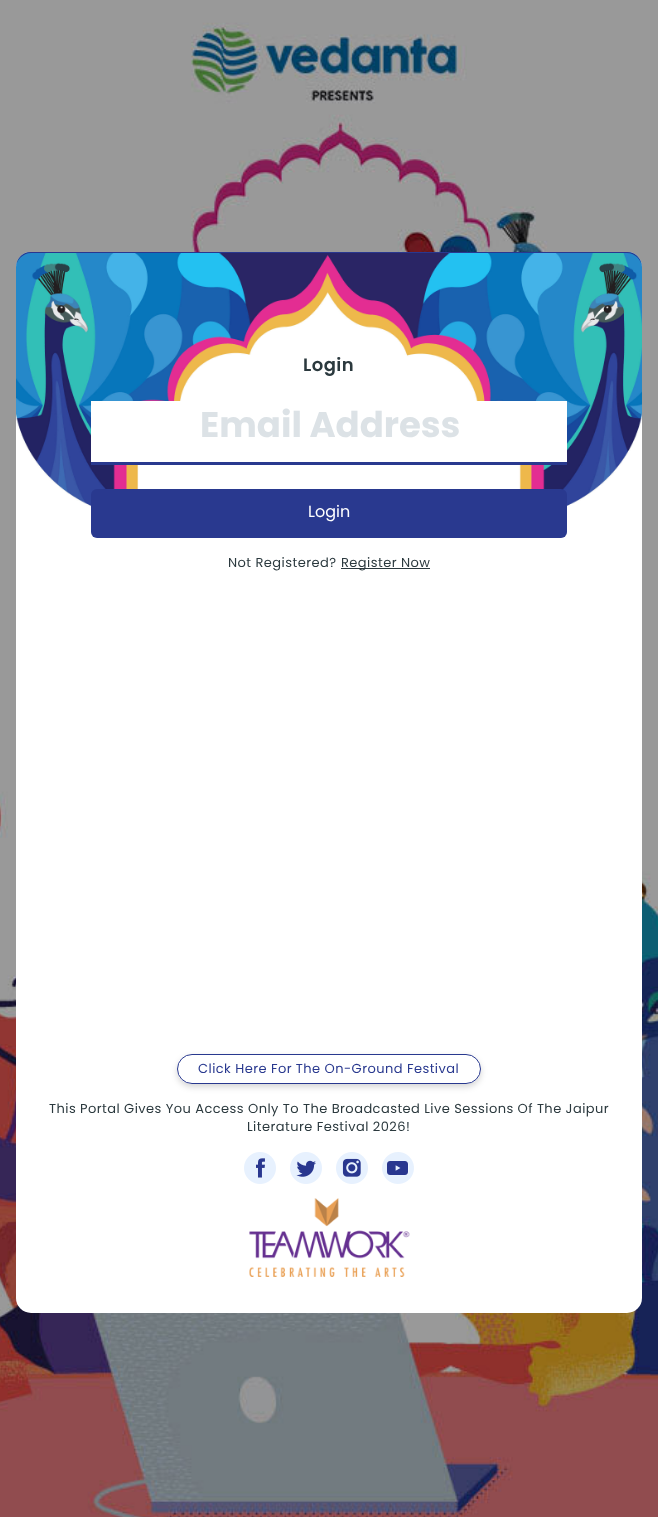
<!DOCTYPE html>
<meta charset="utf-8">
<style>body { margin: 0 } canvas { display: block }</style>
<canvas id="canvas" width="658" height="1517"></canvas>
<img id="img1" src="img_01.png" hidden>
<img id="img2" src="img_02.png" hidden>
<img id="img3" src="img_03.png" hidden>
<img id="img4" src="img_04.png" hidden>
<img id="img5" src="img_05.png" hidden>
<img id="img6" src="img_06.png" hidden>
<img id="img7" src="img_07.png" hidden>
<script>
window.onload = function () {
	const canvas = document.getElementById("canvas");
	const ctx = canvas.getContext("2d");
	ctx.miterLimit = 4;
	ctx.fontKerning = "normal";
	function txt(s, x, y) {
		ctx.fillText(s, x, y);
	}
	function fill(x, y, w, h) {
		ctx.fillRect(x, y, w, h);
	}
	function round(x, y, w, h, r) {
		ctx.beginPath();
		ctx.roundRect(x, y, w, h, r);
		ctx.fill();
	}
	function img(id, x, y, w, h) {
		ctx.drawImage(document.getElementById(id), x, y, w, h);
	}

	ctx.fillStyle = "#FFFFFF";
	fill(0, 0, 658, 1517);
	img("img1", 0, 0, 658, 1517);
	round(16, 252, 626, 1061, 15);
	img("img2", 16, 252, 626, 267);
	ctx.fillStyle = "#29378F";
	ctx.beginPath();
	ctx.moveTo(31, 253);
	ctx.lineTo(627, 253);
	ctx.bezierCurveTo(635, 253, 642, 260, 642, 268);
	ctx.bezierCurveTo(642, 259, 636, 252, 627, 252);
	ctx.lineTo(31, 252);
	ctx.bezierCurveTo(22, 252, 16, 259, 16, 268);
	ctx.bezierCurveTo(16, 260, 23, 253, 31, 253);
	ctx.closePath();
	ctx.fill();
	ctx.fillStyle = "#FFFFFF";
	fill(91, 401, 476, 61);
	ctx.fillStyle = "#29398F";
	fill(91, 462, 476, 3);
	round(91, 489, 476, 49, 6);
	ctx.fillStyle = "#2B393E";
	fill(341, 568, 89, 1);
	ctx.save();
	ctx.beginPath();
	ctx.moveTo(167, 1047);
	ctx.lineTo(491, 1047);
	ctx.lineTo(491, 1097);
	ctx.lineTo(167, 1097);
	ctx.closePath();
	ctx.moveTo(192, 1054);
	ctx.lineTo(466, 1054);
	ctx.bezierCurveTo(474.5, 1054, 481, 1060.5, 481, 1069);
	ctx.bezierCurveTo(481, 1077.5, 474.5, 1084, 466, 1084);
	ctx.lineTo(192, 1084);
	ctx.bezierCurveTo(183.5, 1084, 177, 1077.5, 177, 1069);
	ctx.bezierCurveTo(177, 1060.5, 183.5, 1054, 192, 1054);
	ctx.closePath();
	ctx.clip("evenodd");
	ctx.fillStyle = "rgba(0, 0, 0, 0.16)";
	ctx.filter = "blur(3px)";
	ctx.beginPath();
	ctx.roundRect(177, 1057, 304, 30, 15);
	ctx.fill();
	ctx.filter = "none";
	ctx.restore();
	ctx.beginPath();
	ctx.roundRect(177.5, 1054.5, 303, 29, 14.5);
	ctx.strokeStyle = "#29398F";
	ctx.stroke();
	img("img3", 244, 1152, 32, 32);
	img("img4", 290, 1152, 32, 32);
	img("img5", 336, 1152, 32, 32);
	img("img6", 382, 1152, 32, 32);
	img("img7", 249, 1198, 161, 79);
	ctx.letterSpacing = "0.45px";
	ctx.font = "600 18px Poppins";
	txt("Login", 303, 371);
	ctx.letterSpacing = "0px";
	ctx.font = "bold 35.5px Poppins";
	ctx.fillStyle = "#DCE2E6";
	txt("Email Address", 200, 437);
	ctx.font = "16px Poppins";
	ctx.fillStyle = "#FFFFFF";
	txt("Login", 308, 517);
	ctx.letterSpacing = "0.45px";
	ctx.font = "13px Poppins";
	ctx.fillStyle = "#2B393E";
	txt("Not Registered?", 228, 567);
	txt("Register Now", 341, 567);
	ctx.fillStyle = "#29398F";
	txt("Click Here For The On-Ground Festival", 198, 1073);
	ctx.fillStyle = "#2B393E";
	txt("This Portal Gives You Access Only To The Broadcasted Live Sessions Of The Jaipur", 49, 1113);
	txt("Literature Festival 2026!", 247, 1131);
};
</script>
